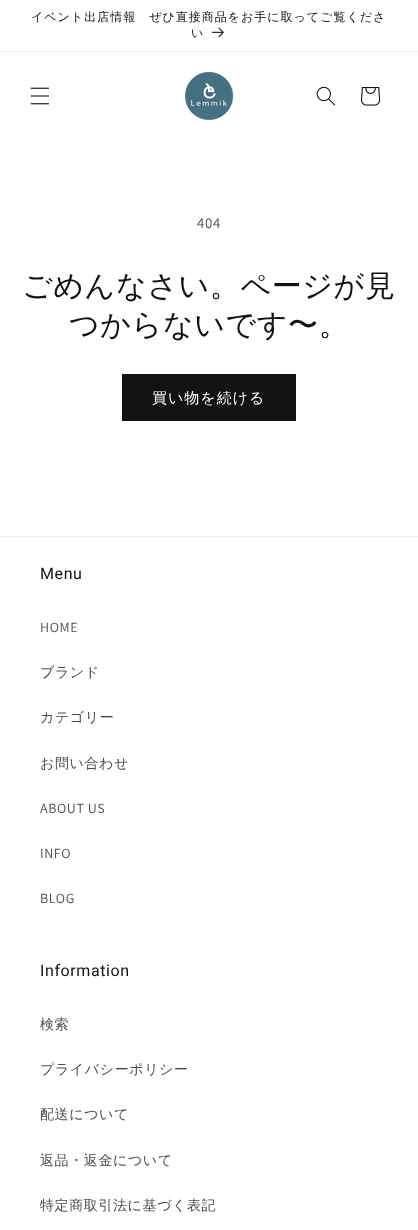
<!DOCTYPE html>
<meta charset="utf-8">
<style>body { margin: 0 } canvas { display: block }</style>
<canvas id="canvas" width="418" height="1230"></canvas>
<img id="img1" src="img_01.png" hidden>
<img id="img2" src="img_02.png" hidden>
<img id="img3" src="img_03.png" hidden>
<img id="img4" src="img_04.png" hidden>
<img id="img5" src="img_05.png" hidden>
<script>
window.onload = function () {
	const canvas = document.getElementById("canvas");
	const ctx = canvas.getContext("2d");
	ctx.miterLimit = 4;
	ctx.fontKerning = "normal";
	function txt(s, x, y) {
		ctx.fillText(s, x, y);
	}
	function fill(x, y, w, h) {
		ctx.fillRect(x, y, w, h);
	}
	function img(id, x, y, w, h) {
		ctx.drawImage(document.getElementById(id), x, y, w, h);
	}

	ctx.fillStyle = "#FFFFFF";
	fill(0, 0, 418, 1230);
	ctx.fillStyle = "#ECECEC";
	fill(0, 51, 418, 1);
	img("img1", 212, 27, 12, 11);
	img("img2", 30, 87, 20, 18);
	img("img3", 184, 71, 50, 50);
	img("img4", 316, 86, 19, 20);
	img("img5", 361, 87, 20, 19);
	ctx.fillStyle = "#121212";
	fill(122, 374, 174, 47);
	ctx.fillStyle = "#ECECEC";
	fill(0, 536, 418, 1);
	ctx.letterSpacing = "1px";
	ctx.font = "500 12px WenQuanYi Zen Hei";
	ctx.fillStyle = "#121212";
	txt("イベント出店情報　ぜひ直接商品をお手に取ってご覧くださ", 31, 21);
	txt("い", 191, 37);
	ctx.letterSpacing = "0.6px";
	ctx.font = "15px Assistant";
	ctx.fillStyle = "#4D4D4D";
	txt("404", 197, 228);
	ctx.font = "500 30px WenQuanYi Zen Hei";
	ctx.fillStyle = "#121212";
	txt("ごめんなさい。ページが見", 22, 296);
	txt("つからないです〜。", 69, 335);
	ctx.letterSpacing = "1px";
	ctx.font = "500 15px WenQuanYi Zen Hei";
	ctx.fillStyle = "#FFFFFF";
	txt("買い物を続ける", 152, 403);
	ctx.letterSpacing = "0.6px";
	ctx.font = "16px Roboto";
	ctx.fillStyle = "#121212";
	txt("Menu", 40, 579);
	ctx.font = "14px Assistant";
	ctx.fillStyle = "#4D4D4D";
	txt("HOME", 40, 632);
	ctx.font = "500 14px WenQuanYi Zen Hei";
	txt("ブランド", 40, 677);
	txt("カテゴリー", 40, 722);
	txt("お問い合わせ", 40, 768);
	ctx.font = "14px Assistant";
	txt("ABOUT US", 40, 813);
	txt("INFO", 40, 858);
	txt("BLOG", 40, 903);
	ctx.font = "16px Roboto";
	ctx.fillStyle = "#121212";
	txt("Information", 40, 976);
	ctx.font = "500 14px WenQuanYi Zen Hei";
	ctx.fillStyle = "#4D4D4D";
	txt("検索", 40, 1029);
	txt("プライバシーポリシー", 40, 1074);
	txt("配送について", 40, 1119);
	txt("返品・返金について", 40, 1165);
	txt("特定商取引法に基づく表記", 40, 1210);
};
</script>
